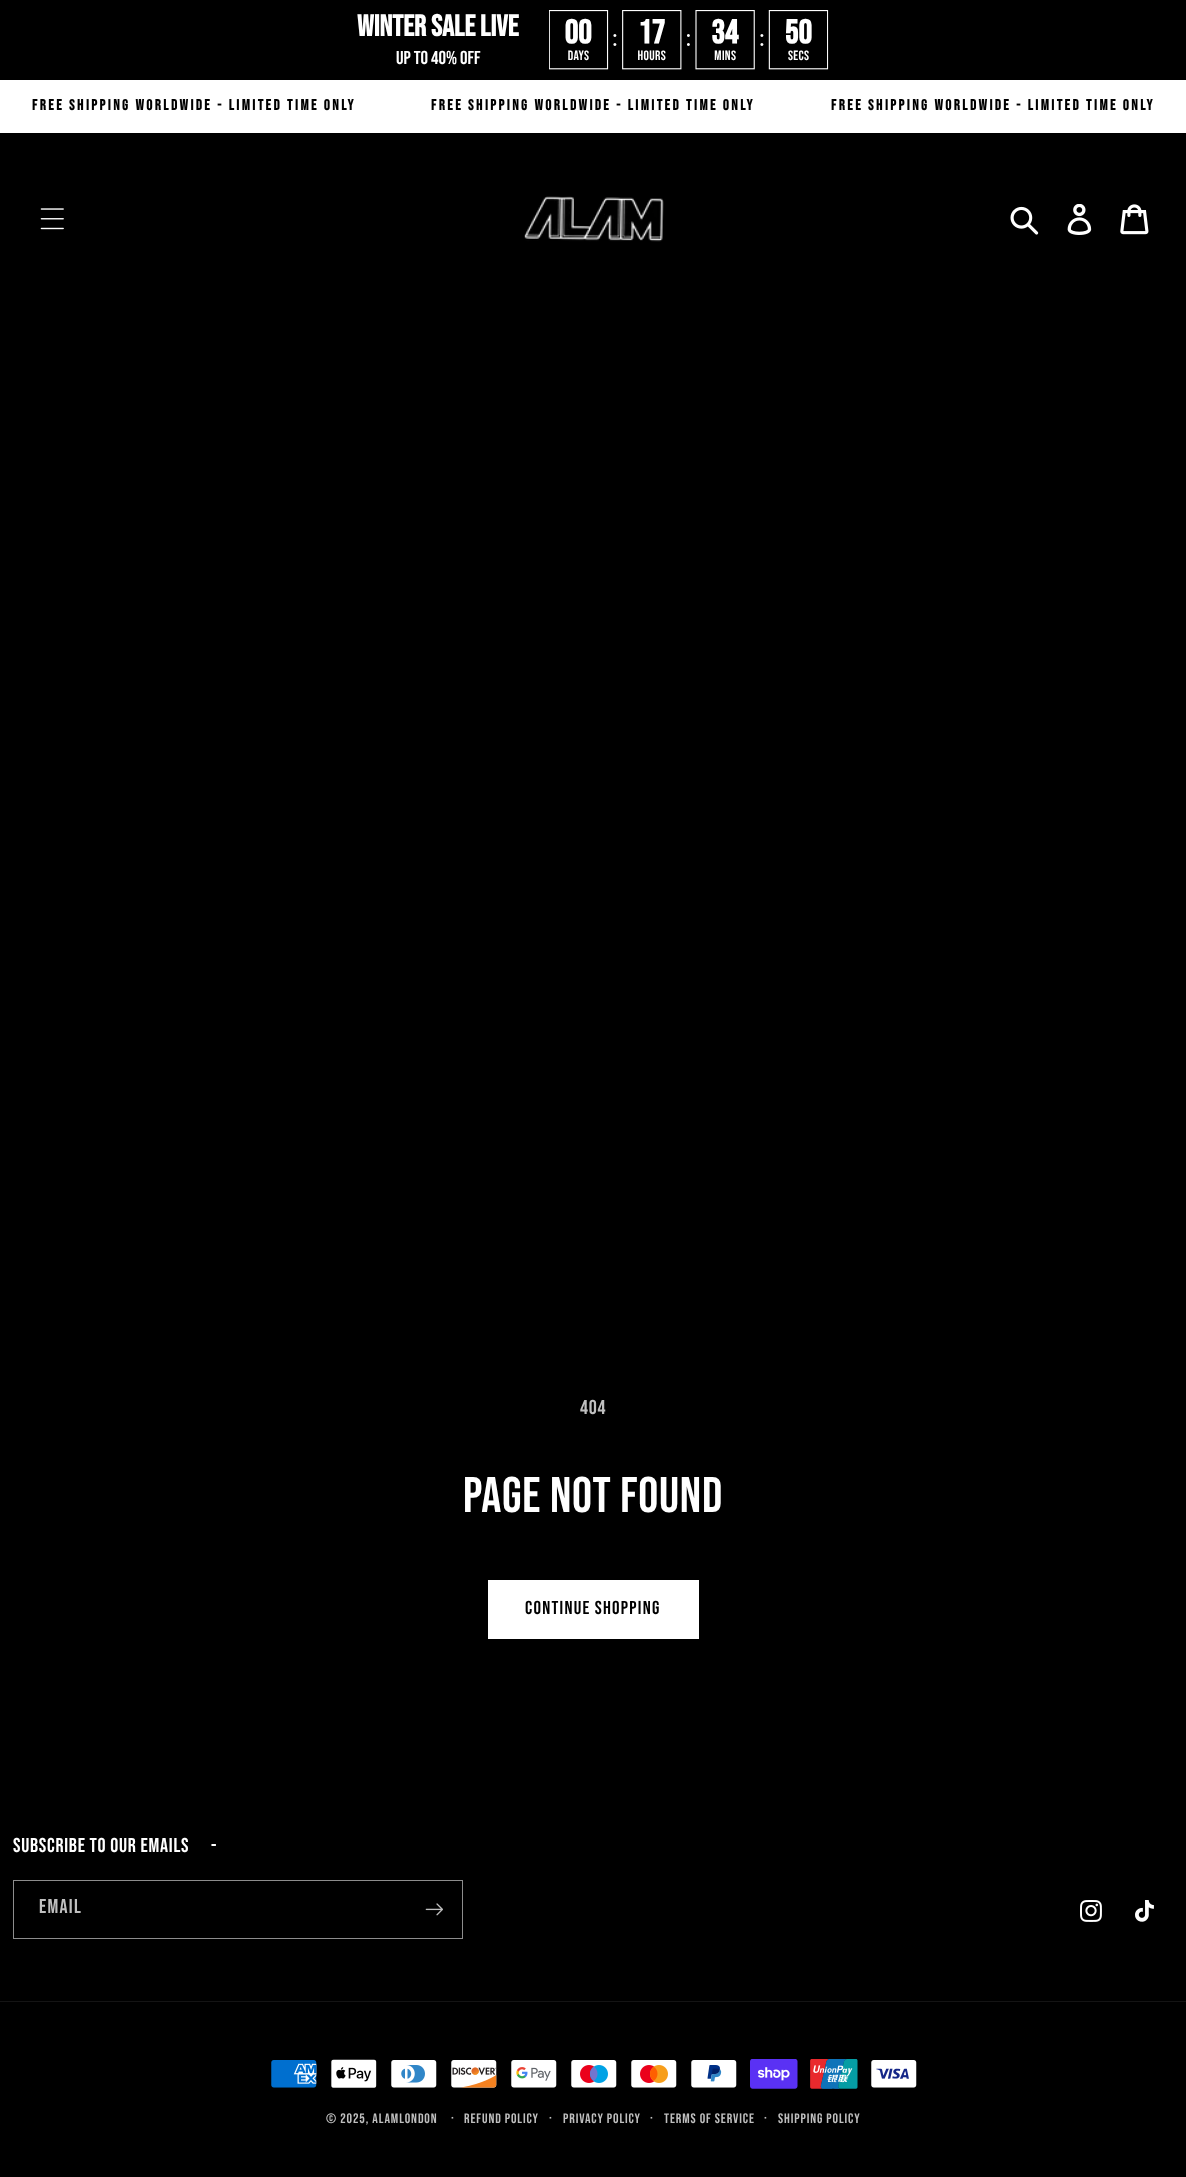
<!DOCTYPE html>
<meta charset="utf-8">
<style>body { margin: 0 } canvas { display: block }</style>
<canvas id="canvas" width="1186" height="2177"></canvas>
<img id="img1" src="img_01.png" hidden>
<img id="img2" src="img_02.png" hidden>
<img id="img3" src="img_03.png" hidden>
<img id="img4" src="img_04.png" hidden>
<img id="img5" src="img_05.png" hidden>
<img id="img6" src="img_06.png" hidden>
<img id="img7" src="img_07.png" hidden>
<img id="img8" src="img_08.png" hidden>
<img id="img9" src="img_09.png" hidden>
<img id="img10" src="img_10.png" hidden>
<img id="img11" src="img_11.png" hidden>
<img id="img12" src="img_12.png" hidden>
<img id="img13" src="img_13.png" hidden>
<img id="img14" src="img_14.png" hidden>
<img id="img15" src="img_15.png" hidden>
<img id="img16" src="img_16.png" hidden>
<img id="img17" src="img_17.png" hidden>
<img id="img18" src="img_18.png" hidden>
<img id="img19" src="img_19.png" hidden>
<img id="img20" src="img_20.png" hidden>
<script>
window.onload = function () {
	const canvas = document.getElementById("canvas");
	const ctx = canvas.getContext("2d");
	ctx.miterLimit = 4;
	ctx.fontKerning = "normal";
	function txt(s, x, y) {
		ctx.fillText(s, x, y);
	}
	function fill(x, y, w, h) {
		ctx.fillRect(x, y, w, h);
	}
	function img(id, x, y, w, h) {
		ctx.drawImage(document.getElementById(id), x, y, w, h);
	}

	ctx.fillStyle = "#000000";
	fill(0, 0, 1186, 2177);
	img("img1", 549, 10, 280, 60);
	ctx.fillStyle = "#FFFFFF";
	fill(0, 80, 1186, 53);
	img("img2", 40, 208, 24, 22);
	img("img3", 524, 196, 140, 46);
	img("img4", 1010, 206, 29, 29);
	img("img5", 1067, 204, 25, 31);
	img("img6", 1120, 204, 29, 31);
	fill(488, 1580, 211, 59);
	ctx.strokeStyle = "#8C8C8C";
	ctx.strokeRect(13.5, 1880.5, 449, 58);
	img("img7", 425, 1903, 18, 13);
	img("img8", 1080, 1900, 22, 22);
	img("img9", 1135, 1900, 19, 22);
	ctx.fillStyle = "#141414";
	fill(0, 2001, 1186, 1);
	img("img10", 271, 2060, 46, 28);
	img("img11", 331, 2059, 46, 29);
	img("img12", 391, 2060, 46, 28);
	img("img13", 451, 2060, 46, 28);
	img("img14", 511, 2060, 46, 28);
	img("img15", 571, 2060, 46, 28);
	img("img16", 631, 2060, 46, 28);
	img("img17", 691, 2060, 46, 28);
	img("img18", 750, 2059, 48, 30);
	img("img19", 810, 2059, 48, 30);
	img("img20", 871, 2060, 46, 28);
	ctx.font = "bold 30px Bebas Neue";
	ctx.fillStyle = "#FFFFFF";
	txt("WINTER SALE LIVE", 357, 36);
	ctx.font = "18.75px Bebas Neue";
	txt("UP TO 40% OFF", 396, 64);
	ctx.letterSpacing = "2.5px";
	ctx.font = "bold 15px Bebas Neue";
	ctx.fillStyle = "#000000";
	txt("FREE SHIPPING WORLDWIDE - LIMITED TIME ONLY", 32, 110);
	txt("FREE SHIPPING WORLDWIDE - LIMITED TIME ONLY", 431, 110);
	txt("FREE SHIPPING WORLDWIDE - LIMITED TIME ONLY", 831, 110);
	ctx.letterSpacing = "0.75px";
	ctx.font = "20px Bebas Neue";
	ctx.fillStyle = "#BFBFBF";
	txt("404", 580, 1414);
	ctx.font = "50px Bebas Neue";
	ctx.fillStyle = "#FFFFFF";
	txt("Page not found", 463, 1512);
	ctx.letterSpacing = "1.25px";
	ctx.font = "18.75px Bebas Neue";
	ctx.fillStyle = "#000000";
	txt("Continue shopping", 525, 1614);
	ctx.letterSpacing = "0.75px";
	ctx.font = "20px Bebas Neue";
	ctx.fillStyle = "#FFFFFF";
	txt("Subscribe to our emails", 13, 1852);
	txt("-", 211, 1852);
	ctx.letterSpacing = "1.25px";
	ctx.fillStyle = "#BFBFBF";
	txt("Email", 39, 1913);
	ctx.letterSpacing = "0.9px";
	ctx.font = "13.75px Bebas Neue";
	txt("© 2025, alamlondon", 326, 2123);
	ctx.font = "15px Bebas Neue";
	txt("·", 451, 2123);
	ctx.font = "13.75px Bebas Neue";
	txt("Refund policy", 464, 2123);
	ctx.font = "15px Bebas Neue";
	txt("·", 549, 2123);
	ctx.font = "13.75px Bebas Neue";
	txt("Privacy policy", 563, 2123);
	ctx.font = "15px Bebas Neue";
	txt("·", 650, 2123);
	ctx.font = "13.75px Bebas Neue";
	txt("Terms of service", 664, 2123);
	ctx.font = "15px Bebas Neue";
	txt("·", 764, 2123);
	ctx.font = "13.75px Bebas Neue";
	txt("Shipping policy", 778, 2123);
};
</script>
